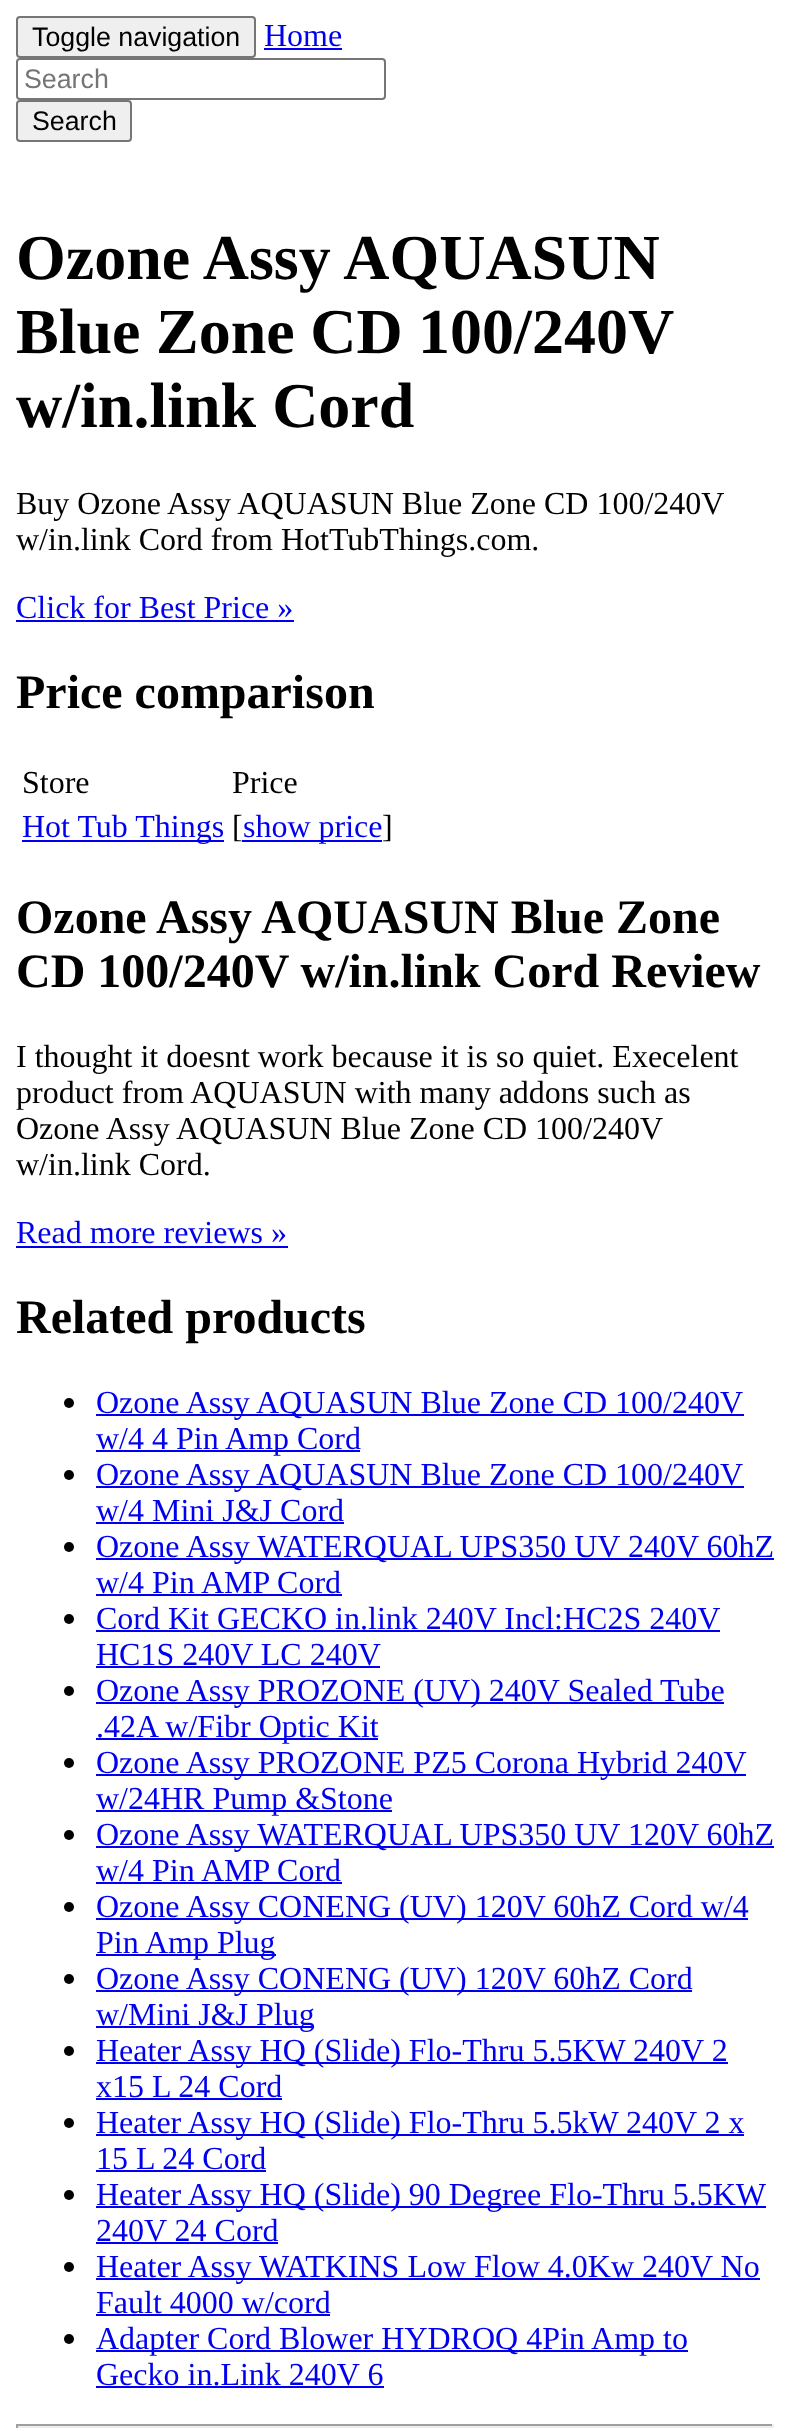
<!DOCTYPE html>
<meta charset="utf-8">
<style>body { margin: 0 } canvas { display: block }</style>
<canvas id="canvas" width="790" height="2431"></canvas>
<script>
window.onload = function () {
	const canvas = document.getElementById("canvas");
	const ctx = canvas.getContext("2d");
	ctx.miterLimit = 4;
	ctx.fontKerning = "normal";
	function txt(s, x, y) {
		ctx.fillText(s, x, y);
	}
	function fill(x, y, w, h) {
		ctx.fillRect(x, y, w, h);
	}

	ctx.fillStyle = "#FFFFFF";
	fill(0, 0, 790, 2431);
	ctx.fillStyle = "#EFEFEF";
	ctx.beginPath();
	ctx.roundRect(17, 17, 238, 40, 3);
	ctx.fill();
	ctx.strokeStyle = "#767676";
	ctx.lineWidth = 2;
	ctx.stroke();
	ctx.fillStyle = "#0000EE";
	fill(264, 48, 78, 2);
	ctx.beginPath();
	ctx.roundRect(17, 59, 368, 40, 3);
	ctx.stroke();
	ctx.fillStyle = "#EFEFEF";
	ctx.beginPath();
	ctx.roundRect(17, 101, 114, 40, 3);
	ctx.fill();
	ctx.stroke();
	ctx.fillStyle = "#0000EE";
	fill(16, 620, 278, 2);
	fill(22, 840, 202, 2);
	fill(242, 840, 140, 2);
	fill(16, 1246, 272, 2);
	ctx.fillStyle = "#000000";
	ctx.beginPath();
	ctx.arc(69, 1403, 5, 0, Math.PI * 2);
	ctx.fill();
	ctx.fillStyle = "#0000EE";
	fill(96, 1414, 648, 2);
	fill(96, 1450, 264, 2);
	ctx.fillStyle = "#000000";
	ctx.beginPath();
	ctx.arc(69, 1475, 5, 0, Math.PI * 2);
	ctx.fill();
	ctx.fillStyle = "#0000EE";
	fill(96, 1486, 648, 2);
	fill(96, 1522, 248, 2);
	ctx.fillStyle = "#000000";
	ctx.beginPath();
	ctx.arc(69, 1547, 5, 0, Math.PI * 2);
	ctx.fill();
	ctx.fillStyle = "#0000EE";
	fill(96, 1558, 678, 2);
	fill(96, 1594, 246, 2);
	ctx.fillStyle = "#000000";
	ctx.beginPath();
	ctx.arc(69, 1619, 5, 0, Math.PI * 2);
	ctx.fill();
	ctx.fillStyle = "#0000EE";
	fill(96, 1630, 624, 2);
	fill(96, 1666, 284, 2);
	ctx.fillStyle = "#000000";
	ctx.beginPath();
	ctx.arc(69, 1691, 5, 0, Math.PI * 2);
	ctx.fill();
	ctx.fillStyle = "#0000EE";
	fill(96, 1702, 628, 2);
	fill(96, 1738, 282, 2);
	ctx.fillStyle = "#000000";
	ctx.beginPath();
	ctx.arc(69, 1763, 5, 0, Math.PI * 2);
	ctx.fill();
	ctx.fillStyle = "#0000EE";
	fill(96, 1774, 650, 2);
	fill(96, 1810, 296, 2);
	ctx.fillStyle = "#000000";
	ctx.beginPath();
	ctx.arc(69, 1835, 5, 0, Math.PI * 2);
	ctx.fill();
	ctx.fillStyle = "#0000EE";
	fill(96, 1846, 678, 2);
	fill(96, 1882, 246, 2);
	ctx.fillStyle = "#000000";
	ctx.beginPath();
	ctx.arc(69, 1907, 5, 0, Math.PI * 2);
	ctx.fill();
	ctx.fillStyle = "#0000EE";
	fill(96, 1918, 652, 2);
	fill(96, 1954, 180, 2);
	ctx.fillStyle = "#000000";
	ctx.beginPath();
	ctx.arc(69, 1979, 5, 0, Math.PI * 2);
	ctx.fill();
	ctx.fillStyle = "#0000EE";
	fill(96, 1990, 596, 2);
	fill(96, 2026, 218, 2);
	ctx.fillStyle = "#000000";
	ctx.beginPath();
	ctx.arc(69, 2051, 5, 0, Math.PI * 2);
	ctx.fill();
	ctx.fillStyle = "#0000EE";
	fill(96, 2062, 632, 2);
	fill(96, 2098, 186, 2);
	ctx.fillStyle = "#000000";
	ctx.beginPath();
	ctx.arc(69, 2123, 5, 0, Math.PI * 2);
	ctx.fill();
	ctx.fillStyle = "#0000EE";
	fill(96, 2134, 648, 2);
	fill(96, 2170, 170, 2);
	ctx.fillStyle = "#000000";
	ctx.beginPath();
	ctx.arc(69, 2195, 5, 0, Math.PI * 2);
	ctx.fill();
	ctx.fillStyle = "#0000EE";
	fill(96, 2206, 670, 2);
	fill(96, 2242, 182, 2);
	ctx.fillStyle = "#000000";
	ctx.beginPath();
	ctx.arc(69, 2267, 5, 0, Math.PI * 2);
	ctx.fill();
	ctx.fillStyle = "#0000EE";
	fill(96, 2278, 664, 2);
	fill(96, 2314, 234, 2);
	ctx.fillStyle = "#000000";
	ctx.beginPath();
	ctx.arc(69, 2339, 5, 0, Math.PI * 2);
	ctx.fill();
	ctx.fillStyle = "#0000EE";
	fill(96, 2350, 592, 2);
	fill(96, 2386, 288, 2);
	ctx.fillStyle = "#9F9F9F";
	fill(16, 2424, 758, 2);
	ctx.fillStyle = "#EEEEEE";
	fill(772, 2424, 2, 4);
	fill(16, 2426, 758, 2);
	ctx.fillStyle = "#9F9F9F";
	fill(16, 2424, 2, 4);
	ctx.font = "26.75px Liberation Sans";
	ctx.fillStyle = "#000000";
	txt("Toggle navigation", 32, 46);
	ctx.font = "32px Liberation Serif";
	ctx.fillStyle = "#0000EE";
	txt("Home", 264, 46);
	ctx.font = "26.75px Liberation Sans";
	ctx.fillStyle = "#757575";
	txt("Search", 24, 88);
	ctx.fillStyle = "#000000";
	txt("Search", 32, 130);
	ctx.font = "bold 64px Liberation Serif";
	txt("Ozone Assy AQUASUN", 16, 279);
	ctx.wordSpacing = "-0.5px";
	txt("Blue Zone CD 100/240V", 16, 353);
	ctx.wordSpacing = "0px";
	txt("w/in.link Cord", 16, 427);
	ctx.font = "32px Liberation Serif";
	txt("Buy Ozone Assy AQUASUN Blue Zone CD 100/240V", 16, 514);
	txt("w/in.link Cord from HotTubThings.com.", 16, 550);
	ctx.fillStyle = "#0000EE";
	txt("Click for Best Price »", 16, 618);
	ctx.font = "bold 48px Liberation Serif";
	ctx.fillStyle = "#000000";
	txt("Price comparison", 16, 708);
	ctx.font = "32px Liberation Serif";
	txt("Store", 22, 793);
	txt("Price", 232, 793);
	ctx.fillStyle = "#0000EE";
	txt("Hot Tub Things", 22, 837);
	ctx.fillStyle = "#000000";
	txt("[", 232, 837);
	ctx.fillStyle = "#0000EE";
	txt("show price", 243, 837);
	ctx.fillStyle = "#000000";
	txt("]", 382, 837);
	ctx.font = "bold 48px Liberation Serif";
	txt("Ozone Assy AQUASUN Blue Zone", 16, 933);
	txt("CD 100/240V w/in.link Cord Review", 16, 987);
	ctx.font = "32px Liberation Serif";
	txt("I thought it doesnt work because it is so quiet. Execelent", 16, 1067);
	txt("product from AQUASUN with many addons such as", 16, 1103);
	txt("Ozone Assy AQUASUN Blue Zone CD 100/240V", 16, 1139);
	txt("w/in.link Cord.", 16, 1175);
	ctx.fillStyle = "#0000EE";
	txt("Read more reviews »", 16, 1243);
	ctx.font = "bold 48px Liberation Serif";
	ctx.fillStyle = "#000000";
	txt("Related products", 16, 1333);
	ctx.font = "32px Liberation Serif";
	ctx.fillStyle = "#0000EE";
	txt("Ozone Assy AQUASUN Blue Zone CD 100/240V", 96, 1413);
	txt("w/4 4 Pin Amp Cord", 96, 1449);
	txt("Ozone Assy AQUASUN Blue Zone CD 100/240V", 96, 1485);
	txt("w/4 Mini J&J Cord", 96, 1521);
	txt("Ozone Assy WATERQUAL UPS350 UV 240V 60hZ", 96, 1557);
	txt("w/4 Pin AMP Cord", 96, 1593);
	txt("Cord Kit GECKO in.link 240V Incl:HC2S 240V", 96, 1629);
	txt("HC1S 240V LC 240V", 96, 1665);
	txt("Ozone Assy PROZONE (UV) 240V Sealed Tube", 96, 1701);
	txt(".42A w/Fibr Optic Kit", 96, 1737);
	txt("Ozone Assy PROZONE PZ5 Corona Hybrid 240V", 96, 1773);
	txt("w/24HR Pump &Stone", 96, 1809);
	txt("Ozone Assy WATERQUAL UPS350 UV 120V 60hZ", 96, 1845);
	txt("w/4 Pin AMP Cord", 96, 1881);
	txt("Ozone Assy CONENG (UV) 120V 60hZ Cord w/4", 96, 1917);
	txt("Pin Amp Plug", 96, 1953);
	txt("Ozone Assy CONENG (UV) 120V 60hZ Cord", 96, 1989);
	txt("w/Mini J&J Plug", 96, 2025);
	txt("Heater Assy HQ (Slide) Flo-Thru 5.5KW 240V 2", 96, 2061);
	txt("x15 L 24 Cord", 96, 2097);
	txt("Heater Assy HQ (Slide) Flo-Thru 5.5kW 240V 2 x", 96, 2133);
	txt("15 L 24 Cord", 96, 2169);
	txt("Heater Assy HQ (Slide) 90 Degree Flo-Thru 5.5KW", 96, 2205);
	txt("240V 24 Cord", 96, 2241);
	txt("Heater Assy WATKINS Low Flow 4.0Kw 240V No", 96, 2277);
	txt("Fault 4000 w/cord", 96, 2313);
	txt("Adapter Cord Blower HYDROQ 4Pin Amp to", 96, 2349);
	txt("Gecko in.Link 240V 6", 96, 2385);
};
</script>
